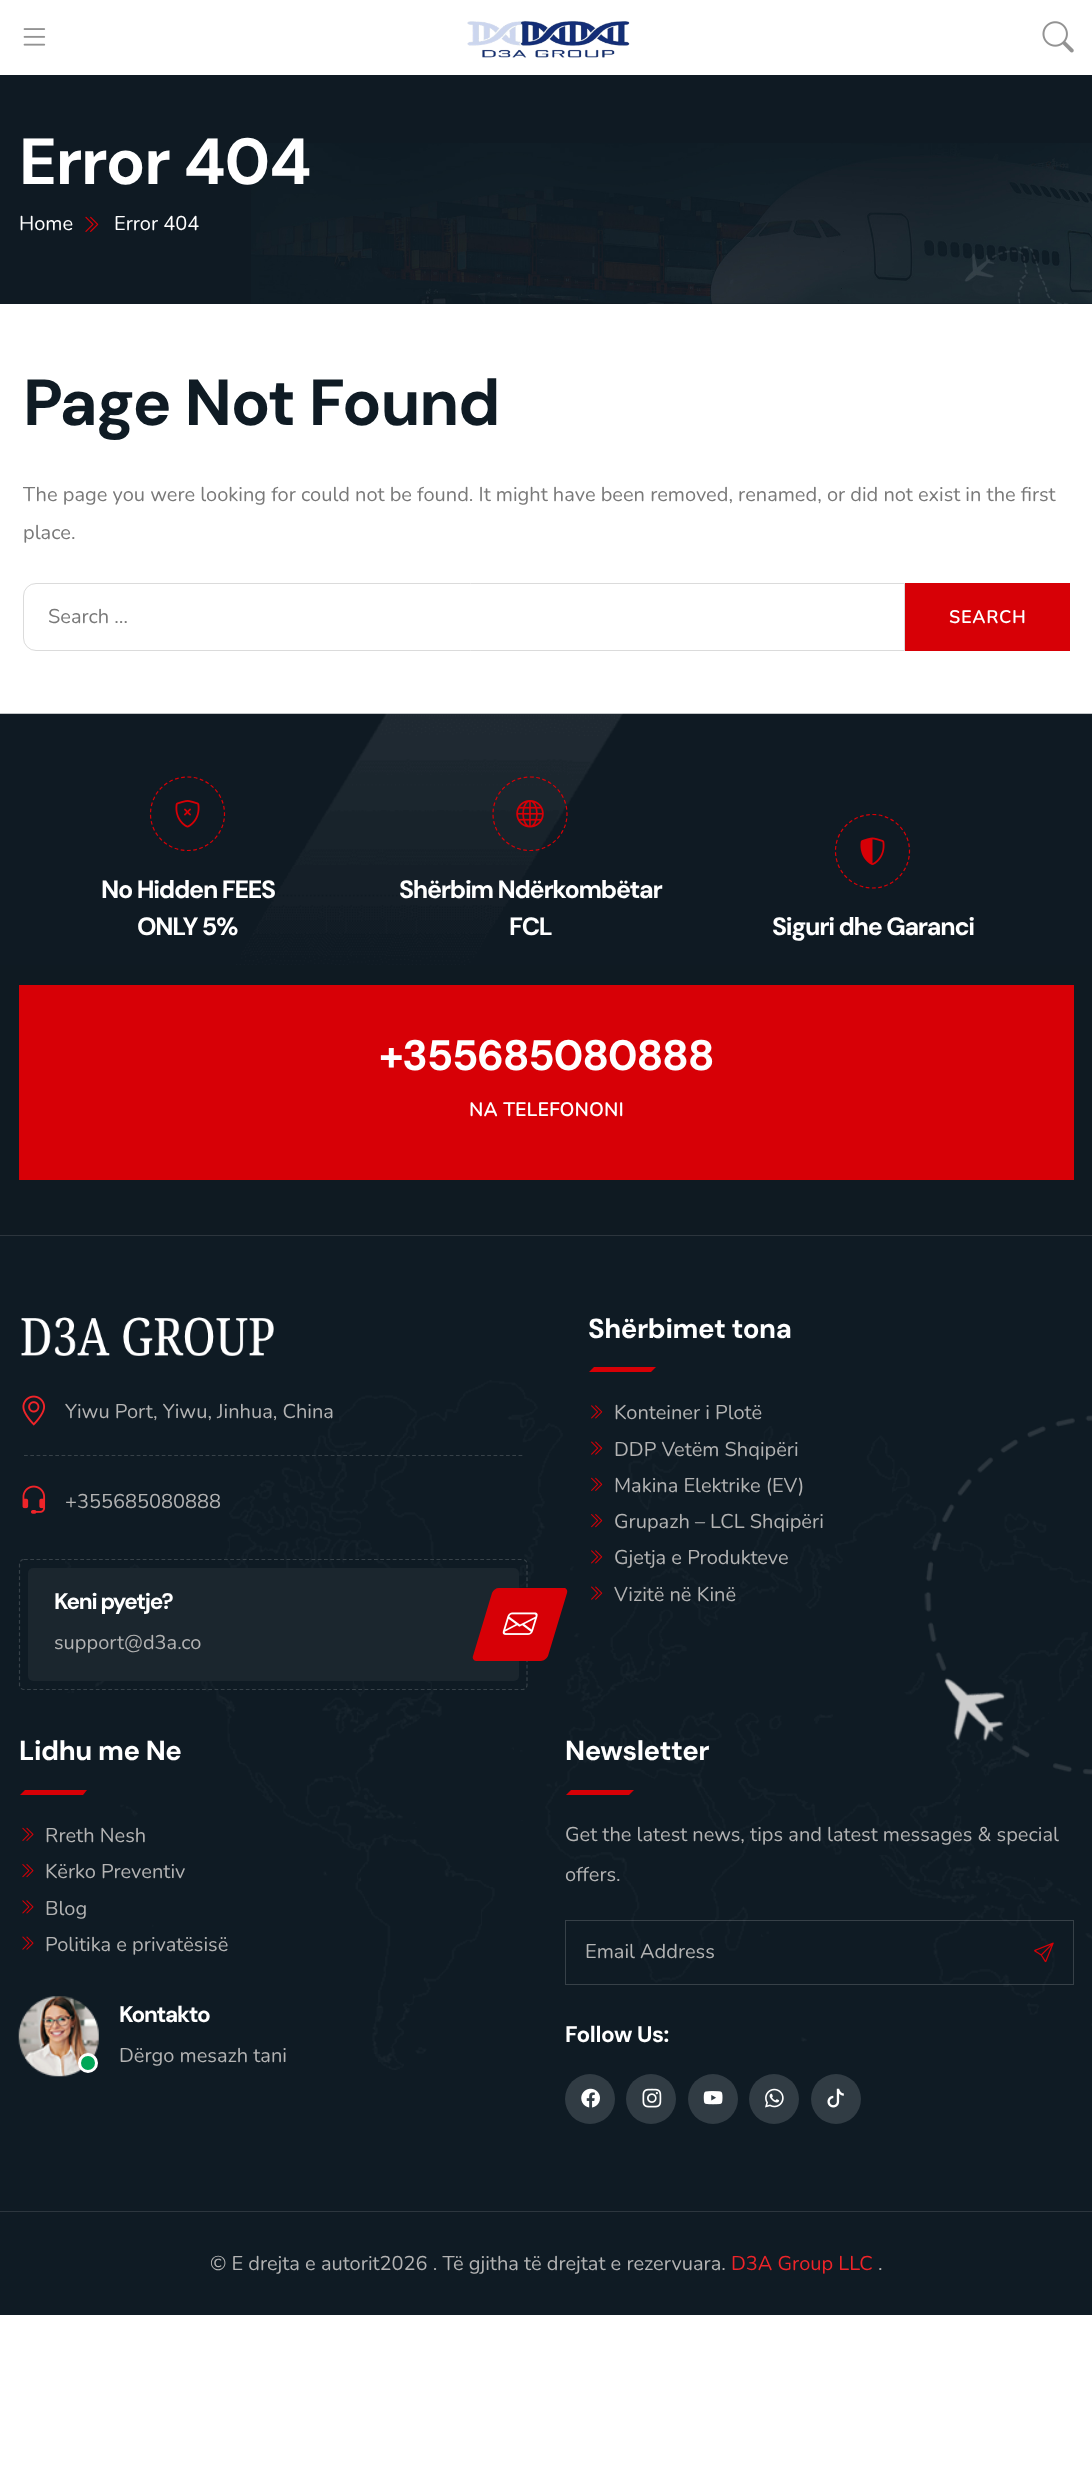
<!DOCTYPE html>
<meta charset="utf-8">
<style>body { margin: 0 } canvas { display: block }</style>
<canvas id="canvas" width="1092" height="2478"></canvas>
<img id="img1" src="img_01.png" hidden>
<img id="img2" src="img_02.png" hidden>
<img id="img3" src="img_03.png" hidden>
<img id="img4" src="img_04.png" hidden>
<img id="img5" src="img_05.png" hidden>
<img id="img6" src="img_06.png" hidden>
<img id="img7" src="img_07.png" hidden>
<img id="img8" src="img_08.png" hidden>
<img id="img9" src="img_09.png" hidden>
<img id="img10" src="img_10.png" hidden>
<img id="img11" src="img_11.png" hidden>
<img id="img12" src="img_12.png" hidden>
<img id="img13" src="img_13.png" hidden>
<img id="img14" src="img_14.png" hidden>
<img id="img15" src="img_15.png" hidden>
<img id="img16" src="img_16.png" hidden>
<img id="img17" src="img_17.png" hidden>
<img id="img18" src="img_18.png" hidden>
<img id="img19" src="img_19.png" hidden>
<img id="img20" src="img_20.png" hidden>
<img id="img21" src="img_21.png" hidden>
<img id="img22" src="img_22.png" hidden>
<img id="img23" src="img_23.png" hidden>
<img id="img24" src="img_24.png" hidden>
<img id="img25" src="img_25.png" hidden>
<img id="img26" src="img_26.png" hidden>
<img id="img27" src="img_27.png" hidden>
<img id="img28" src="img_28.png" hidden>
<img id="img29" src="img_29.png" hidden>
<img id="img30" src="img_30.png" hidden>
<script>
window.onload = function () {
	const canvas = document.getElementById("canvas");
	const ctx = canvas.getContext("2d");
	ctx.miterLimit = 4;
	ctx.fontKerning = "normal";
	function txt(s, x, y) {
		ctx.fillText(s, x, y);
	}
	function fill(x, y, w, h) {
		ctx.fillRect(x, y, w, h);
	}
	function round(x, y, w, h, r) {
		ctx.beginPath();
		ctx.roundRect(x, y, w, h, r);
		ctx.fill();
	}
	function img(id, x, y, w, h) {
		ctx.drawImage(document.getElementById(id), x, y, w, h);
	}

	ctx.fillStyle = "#FFFFFF";
	fill(0, 0, 1092, 2478);
	img("img1", 23, 28, 23, 18);
	img("img2", 467, 20, 163, 38);
	img("img3", 1042, 21, 32, 32);
	ctx.fillStyle = "#0F1A23";
	fill(0, 75, 1092, 229);
	img("img4", 251, 143, 841, 161);
	img("img5", 85, 216, 14, 16);
	ctx.beginPath();
	ctx.roundRect(23.5, 583.5, 881, 67, [12.5, 0, 0, 12.5]);
	ctx.strokeStyle = "#DBDBDB";
	ctx.stroke();
	ctx.fillStyle = "#D70006";
	fill(905, 583, 165, 68);
	ctx.fillStyle = "#0F1A22";
	fill(0, 965, 1092, 270);
	img("img6", 0, 713, 1092, 252);
	ctx.fillStyle = "#2C353D";
	fill(0, 1235, 1092, 1);
	ctx.beginPath();
	ctx.moveTo(187.5, 777);
	ctx.bezierCurveTo(208, 777, 224.5, 793.5, 224.5, 814);
	ctx.bezierCurveTo(224.5, 834, 208, 850.5, 187.5, 850.5);
	ctx.bezierCurveTo(167, 850.5, 150.5, 834, 150.5, 814);
	ctx.bezierCurveTo(150.5, 793.5, 167, 777, 187.5, 777);
	ctx.closePath();
	ctx.strokeStyle = "#D70006";
	ctx.lineWidth = 1.2;
	ctx.setLineDash([3.75, 2.5]);
	ctx.stroke();
	img("img7", 175, 800, 25, 28);
	ctx.beginPath();
	ctx.moveTo(530, 777);
	ctx.bezierCurveTo(550.5, 777, 567, 793.5, 567, 814);
	ctx.bezierCurveTo(567, 834, 550.5, 850.5, 530, 850.5);
	ctx.bezierCurveTo(509.5, 850.5, 493, 834, 493, 814);
	ctx.bezierCurveTo(493, 793.5, 509.5, 777, 530, 777);
	ctx.closePath();
	ctx.stroke();
	img("img8", 516, 800, 28, 28);
	ctx.beginPath();
	ctx.moveTo(872.5, 814.5);
	ctx.bezierCurveTo(893, 814.5, 909.5, 831, 909.5, 851);
	ctx.bezierCurveTo(909.5, 871.5, 893, 888, 872.5, 888);
	ctx.bezierCurveTo(852, 888, 835.5, 871.5, 835.5, 851);
	ctx.bezierCurveTo(835.5, 831, 852, 814.5, 872.5, 814.5);
	ctx.closePath();
	ctx.stroke();
	img("img9", 860, 837, 25, 28);
	ctx.fillStyle = "#D70006";
	fill(19, 985, 1055, 195);
	ctx.fillStyle = "#0F1B24";
	fill(0, 1236, 1092, 1079);
	img("img10", 65, 1380, 1027, 690);
	ctx.fillStyle = "#2C363E";
	fill(0, 2211, 1092, 1);
	img("img11", 21, 1317, 253, 39);
	img("img12", 22, 1395, 24, 31);
	ctx.beginPath();
	ctx.moveTo(24, 1455.5);
	ctx.lineTo(522.5, 1455.5);
	ctx.strokeStyle = "#374148";
	ctx.setLineDash([3.75, 2.51]);
	ctx.stroke();
	img("img13", 22, 1485, 24, 29);
	ctx.beginPath();
	ctx.moveTo(24, 1559.5);
	ctx.lineTo(522.5, 1559.5);
	ctx.bezierCurveTo(525, 1559.5, 527, 1561.5, 527, 1564);
	ctx.lineTo(527, 1685);
	ctx.bezierCurveTo(527, 1687.5, 525, 1689.5, 522.5, 1689.5);
	ctx.lineTo(24, 1689.5);
	ctx.bezierCurveTo(21.5, 1689.5, 19.5, 1687.5, 19.5, 1685);
	ctx.lineTo(19.5, 1564);
	ctx.bezierCurveTo(19.5, 1561.5, 21.5, 1559.5, 24, 1559.5);
	ctx.closePath();
	ctx.setLineDash([3.75, 2.5]);
	ctx.stroke();
	ctx.fillStyle = "#1B262E";
	round(28, 1568, 491, 113, 5);
	ctx.fillStyle = "#D70006";
	ctx.beginPath();
	ctx.moveTo(499, 1588);
	ctx.lineTo(564, 1588);
	ctx.bezierCurveTo(566, 1588, 568, 1590, 567, 1593);
	ctx.lineTo(548, 1656);
	ctx.bezierCurveTo(547, 1658, 544, 1661, 541, 1661);
	ctx.lineTo(476, 1661);
	ctx.bezierCurveTo(474, 1661, 472, 1658, 473, 1656);
	ctx.lineTo(492, 1593);
	ctx.bezierCurveTo(493, 1590, 496, 1588, 499, 1588);
	ctx.closePath();
	ctx.fill();
	img("img14", 502, 1612, 36, 23);
	ctx.beginPath();
	ctx.moveTo(594, 1367);
	ctx.lineTo(656, 1367);
	ctx.lineTo(651, 1372);
	ctx.lineTo(589, 1372);
	ctx.closePath();
	ctx.fill();
	img("img15", 591, 1405, 12, 14);
	img("img16", 591, 1441, 12, 14);
	img("img17", 591, 1477, 12, 14);
	img("img18", 591, 1514, 12, 14);
	img("img15", 591, 1550, 12, 14);
	img("img16", 591, 1586, 12, 14);
	ctx.beginPath();
	ctx.moveTo(25, 1790);
	ctx.lineTo(87, 1790);
	ctx.lineTo(83, 1795);
	ctx.lineTo(20, 1795);
	ctx.closePath();
	ctx.fill();
	img("img19", 22, 1827, 12, 14);
	img("img20", 22, 1864, 12, 14);
	img("img21", 22, 1900, 12, 14);
	img("img22", 22, 1936, 12, 14);
	img("img23", 18, 1996, 81, 81);
	ctx.fillStyle = "#00A757";
	ctx.beginPath();
	ctx.arc(88, 2063, 8.5, 0, Math.PI * 2);
	ctx.fill();
	ctx.strokeStyle = "#FFFFFF";
	ctx.lineWidth = 3;
	ctx.setLineDash([]);
	ctx.stroke();
	ctx.fillStyle = "#D70006";
	ctx.beginPath();
	ctx.moveTo(571, 1790);
	ctx.lineTo(634, 1790);
	ctx.lineTo(629, 1795);
	ctx.lineTo(566, 1795);
	ctx.closePath();
	ctx.fill();
	ctx.strokeStyle = "rgba(255, 255, 255, 0.17)";
	ctx.lineWidth = 1;
	ctx.strokeRect(565.5, 1920.5, 508, 64);
	img("img24", 1034, 1942, 20, 21);
	ctx.fillStyle = "#313C44";
	ctx.beginPath();
	ctx.arc(590, 2099, 25, 0, Math.PI * 2);
	ctx.fill();
	img("img25", 581, 2088, 19, 20);
	ctx.beginPath();
	ctx.arc(651, 2099, 25, 0, Math.PI * 2);
	ctx.fill();
	img("img26", 642, 2088, 20, 20);
	ctx.beginPath();
	ctx.arc(713, 2099, 25, 0, Math.PI * 2);
	ctx.fill();
	img("img27", 703, 2091, 20, 14);
	ctx.beginPath();
	ctx.arc(774, 2099, 25, 0, Math.PI * 2);
	ctx.fill();
	img("img28", 765, 2088, 19, 20);
	ctx.beginPath();
	ctx.arc(836, 2099, 25, 0, Math.PI * 2);
	ctx.fill();
	img("img29", 827, 2088, 17, 20);
	img("img30", 924, 1415, 168, 360);
	ctx.letterSpacing = "-1.25px";
	ctx.font = "bold 65px DM Sans";
	ctx.fillStyle = "#FFFFFF";
	txt("Error 404", 19, 184);
	ctx.letterSpacing = "0px";
	ctx.font = "200 20px Nunito";
	txt("Home", 19, 230);
	txt("Error 404", 114, 230);
	ctx.letterSpacing = "-1.25px";
	ctx.font = "bold 65px DM Sans";
	ctx.fillStyle = "#0F1B24";
	txt("Page Not Found", 23, 425);
	ctx.letterSpacing = "0px";
	ctx.font = "200 20px Nunito";
	ctx.fillStyle = "#797979";
	txt("The page you were looking for could not be found. It might have been removed, renamed, or did not exist in the first", 23, 501);
	txt("place.", 23, 539);
	txt("Search …", 48, 623);
	ctx.letterSpacing = "1.25px";
	ctx.font = "bold 17.5px Nunito";
	ctx.fillStyle = "#FFFFFF";
	txt("SEARCH", 949, 623);
	ctx.letterSpacing = "-1.25px";
	ctx.font = "bold 25px DM Sans";
	txt("No Hidden FEES", 101, 898);
	txt("ONLY 5%", 137, 935);
	txt("Shërbim Ndërkombëtar", 399, 898);
	txt("FCL", 509, 935);
	txt("Siguri dhe Garanci", 772, 935);
	ctx.font = "bold 42.5px DM Sans";
	txt("+355685080888", 379, 1070);
	ctx.letterSpacing = "0.6px";
	ctx.font = "bold 18.75px Nunito";
	txt("NA TELEFONONI", 469, 1116);
	ctx.letterSpacing = "0px";
	ctx.font = "200 20px Nunito";
	ctx.fillStyle = "#B3B3B3";
	txt("Yiwu Port, Yiwu, Jinhua, China", 65, 1418);
	txt("+355685080888", 65, 1508);
	ctx.letterSpacing = "-1.25px";
	ctx.font = "bold 22.5px DM Sans";
	ctx.fillStyle = "#FFFFFF";
	txt("Keni pyetje?", 54, 1609);
	ctx.letterSpacing = "0px";
	ctx.font = "200 20px Nunito";
	ctx.fillStyle = "#B3B3B3";
	txt("support@d3a.co", 54, 1649);
	ctx.letterSpacing = "-0.4px";
	ctx.font = "bold 27.5px DM Sans";
	ctx.fillStyle = "#FFFFFF";
	txt("Shërbimet tona", 588, 1338);
	ctx.letterSpacing = "0px";
	ctx.font = "200 20px Nunito";
	ctx.fillStyle = "#B3B3B3";
	txt("Konteiner i Plotë", 614, 1419);
	txt("DDP Vetëm Shqipëri", 614, 1456);
	txt("Makina Elektrike (EV)", 614, 1492);
	txt("Grupazh – LCL Shqipëri", 614, 1528);
	txt("Gjetja e Produkteve", 614, 1564);
	txt("Vizitë në Kinë", 614, 1601);
	ctx.letterSpacing = "-0.4px";
	ctx.font = "bold 27.5px DM Sans";
	ctx.fillStyle = "#FFFFFF";
	txt("Lidhu me Ne", 19, 1760);
	ctx.letterSpacing = "0px";
	ctx.font = "200 20px Nunito";
	ctx.fillStyle = "#B3B3B3";
	txt("Rreth Nesh", 45, 1842);
	txt("Kërko Preventiv", 45, 1878);
	txt("Blog", 45, 1915);
	txt("Politika e privatësisë", 45, 1951);
	ctx.letterSpacing = "-1.25px";
	ctx.font = "bold 22.5px DM Sans";
	ctx.fillStyle = "#FFFFFF";
	txt("Kontakto", 119, 2022);
	ctx.letterSpacing = "0px";
	ctx.font = "200 20px Nunito";
	ctx.fillStyle = "#B3B3B3";
	txt("Dërgo mesazh tani", 119, 2062);
	ctx.letterSpacing = "-0.4px";
	ctx.font = "bold 27.5px DM Sans";
	ctx.fillStyle = "#FFFFFF";
	txt("Newsletter", 565, 1760);
	ctx.letterSpacing = "0px";
	ctx.font = "200 20px Nunito";
	ctx.fillStyle = "#B3B3B3";
	txt("Get the latest news, tips and latest messages & special", 565, 1841);
	txt("offers.", 565, 1881);
	txt("Email Address", 585, 1958);
	ctx.letterSpacing = "-0.4px";
	ctx.font = "bold 22.5px DM Sans";
	ctx.fillStyle = "#FFFFFF";
	txt("Follow Us:", 565, 2042);
	ctx.letterSpacing = "0px";
	ctx.font = "200 20px Nunito";
	ctx.fillStyle = "#B3B3B3";
	txt("© E drejta e autorit2026 . Të gjitha të drejtat e rezervuara.", 210, 2270);
	ctx.fillStyle = "#EF2429";
	txt("D3A Group LLC", 731, 2270);
	ctx.fillStyle = "#B3B3B3";
	txt(".", 878, 2270);
};
</script>
